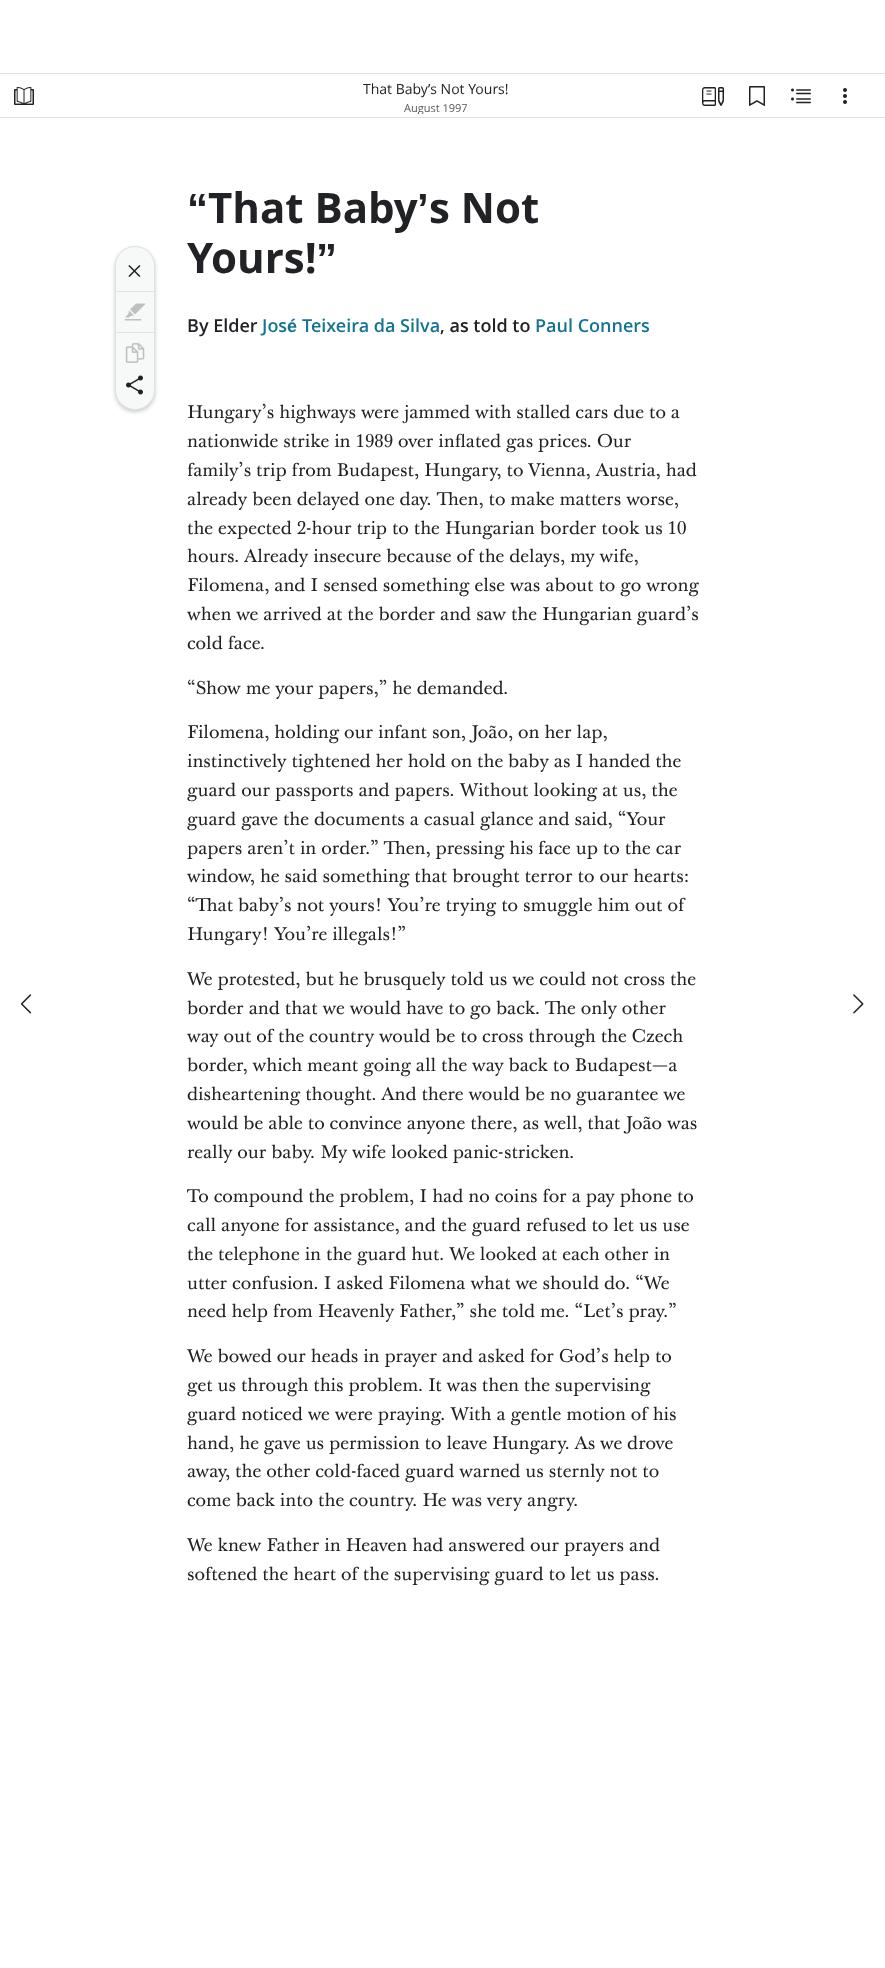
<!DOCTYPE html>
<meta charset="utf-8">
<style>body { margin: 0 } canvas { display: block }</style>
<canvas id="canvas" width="885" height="1968"></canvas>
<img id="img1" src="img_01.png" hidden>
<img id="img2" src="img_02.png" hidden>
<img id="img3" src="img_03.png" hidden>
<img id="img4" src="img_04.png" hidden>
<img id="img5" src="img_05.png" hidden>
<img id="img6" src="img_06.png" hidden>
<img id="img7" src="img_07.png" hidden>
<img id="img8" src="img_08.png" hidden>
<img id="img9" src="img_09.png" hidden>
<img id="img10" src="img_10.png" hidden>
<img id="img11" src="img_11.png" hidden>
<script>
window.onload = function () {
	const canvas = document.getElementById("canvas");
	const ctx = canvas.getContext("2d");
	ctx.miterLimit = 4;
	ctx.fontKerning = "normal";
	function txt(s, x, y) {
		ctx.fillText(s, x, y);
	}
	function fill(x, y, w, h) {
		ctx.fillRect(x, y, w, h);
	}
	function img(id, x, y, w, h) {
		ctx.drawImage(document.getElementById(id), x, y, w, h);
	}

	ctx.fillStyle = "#FFFFFF";
	fill(0, 0, 885, 1968);
	ctx.fillStyle = "#E0E2E2";
	fill(0, 73, 885, 1);
	fill(0, 117, 885, 1);
	img("img1", 14, 87, 20, 18);
	img("img2", 702, 87, 22, 19);
	img("img3", 749, 86, 16, 20);
	img("img4", 791, 88, 20, 16);
	img("img5", 843, 88, 4, 16);
	img("img6", 20, 994, 12, 20);
	ctx.fillStyle = "rgba(0, 0, 0, 0.2)";
	ctx.filter = "blur(2px)";
	ctx.beginPath();
	ctx.roundRect(115, 248, 40, 164, 20);
	ctx.fill();
	ctx.filter = "none";
	ctx.fillStyle = "#F7F8F8";
	ctx.beginPath();
	ctx.roundRect(115.5, 246.5, 39, 163, 19.5);
	ctx.fill();
	ctx.strokeStyle = "#E0E2E2";
	ctx.stroke();
	img("img7", 128, 265, 13, 12);
	ctx.fillStyle = "#E0E2E2";
	fill(116, 291, 38, 1);
	img("img8", 124, 303, 22, 18);
	fill(116, 332, 38, 1);
	img("img9", 125, 343, 20, 20);
	img("img10", 126, 375, 17, 20);
	img("img11", 853, 994, 11, 20);
	ctx.font = "14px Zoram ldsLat";
	ctx.fillStyle = "#212225";
	txt("That Baby’s Not Yours!", 363, 94);
	ctx.save();
	ctx.beginPath();
	ctx.rect(188, 78, 496, 36);
	ctx.clip();
	ctx.font = "11px Zoram ldsLat";
	ctx.fillStyle = "#53575B";
	txt("August 1997", 404, 112);
	ctx.restore();
	ctx.font = "bold 42px Liberation Sans";
	txt("“", 187, 223);
	ctx.font = "bold 42px Zoram ldsLat";
	txt("That Baby", 208, 223);
	ctx.font = "bold 42px Liberation Sans";
	txt("’", 417, 223);
	ctx.font = "bold 42px Zoram ldsLat";
	txt("s Not", 429, 223);
	txt("Yours!", 187, 273);
	ctx.font = "bold 42px Liberation Sans";
	txt("”", 316, 273);
	ctx.font = "600 18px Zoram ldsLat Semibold";
	txt("By Elder", 187, 332);
	ctx.fillStyle = "#157493";
	txt("Jos", 262, 332);
	ctx.font = "bold 18px Liberation Sans";
	txt("é", 287, 332);
	ctx.font = "600 18px Zoram ldsLat Semibold";
	txt("Teixeira da Silva", 302, 332);
	ctx.fillStyle = "#212225";
	txt(", as told to", 440, 332);
	ctx.fillStyle = "#157493";
	txt("Paul Conners", 535, 332);
	ctx.font = "18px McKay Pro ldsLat";
	ctx.fillStyle = "#212225";
	txt("Hungary’s highways were jammed with stalled cars due to a", 187, 418);
	txt("nationwide strike in 1989 over inflated gas prices. Our", 187, 447);
	txt("family’s trip from Budapest, Hungary, to Vienna, Austria, had", 187, 476);
	txt("already been delayed one day. Then, to make matters worse,", 187, 505);
	txt("the expected 2-hour trip to the Hungarian border took us 10", 187, 534);
	txt("hours. Already insecure because of the delays, my wife,", 187, 562);
	txt("Filomena, and I sensed something else was about to go wrong", 187, 591);
	txt("when we arrived at the border and saw the Hungarian guard’s", 187, 620);
	txt("cold face.", 187, 649);
	txt("“Show me your papers,” he demanded.", 187, 694);
	txt("Filomena, holding our infant son, João, on her lap,", 187, 738);
	txt("instinctively tightened her hold on the baby as I handed the", 187, 767);
	txt("guard our passports and papers. Without looking at us, the", 187, 796);
	txt("guard gave the documents a casual glance and said, “Your", 187, 825);
	txt("papers aren’t in order.” Then, pressing his face up to the car", 187, 854);
	txt("window, he said something that brought terror to our hearts:", 187, 882);
	txt("“That baby’s not yours! You’re trying to smuggle him out of", 187, 911);
	txt("Hungary! You’re illegals!”", 187, 940);
	txt("We protested, but he brusquely told us we could not cross the", 187, 985);
	txt("border and that we would have to go back. The only other", 187, 1014);
	txt("way out of the country would be to cross through the Czech", 187, 1042);
	txt("border, which meant going all the way back to Budapest—a", 187, 1071);
	txt("disheartening thought. And there would be no guarantee we", 187, 1100);
	txt("would be able to convince anyone there, as well, that João was", 187, 1129);
	txt("really our baby. My wife looked panic-stricken.", 187, 1158);
	txt("To compound the problem, I had no coins for a pay phone to", 187, 1202);
	txt("call anyone for assistance, and the guard refused to let us use", 187, 1231);
	txt("the telephone in the guard hut. We looked at each other in", 187, 1260);
	txt("utter confusion. I asked Filomena what we should do. “We", 187, 1289);
	txt("need help from Heavenly Father,” she told me. “Let’s pray.”", 187, 1317);
	txt("We bowed our heads in prayer and asked for God’s help to", 187, 1362);
	txt("get us through this problem. It was then the supervising", 187, 1391);
	txt("guard noticed we were praying. With a gentle motion of his", 187, 1420);
	txt("hand, he gave us permission to leave Hungary. As we drove", 187, 1449);
	txt("away, the other cold-faced guard warned us sternly not to", 187, 1477);
	txt("come back into the country. He was very angry.", 187, 1506);
	txt("We knew Father in Heaven had answered our prayers and", 187, 1551);
	txt("softened the heart of the supervising guard to let us pass.", 187, 1580);
};
</script>
